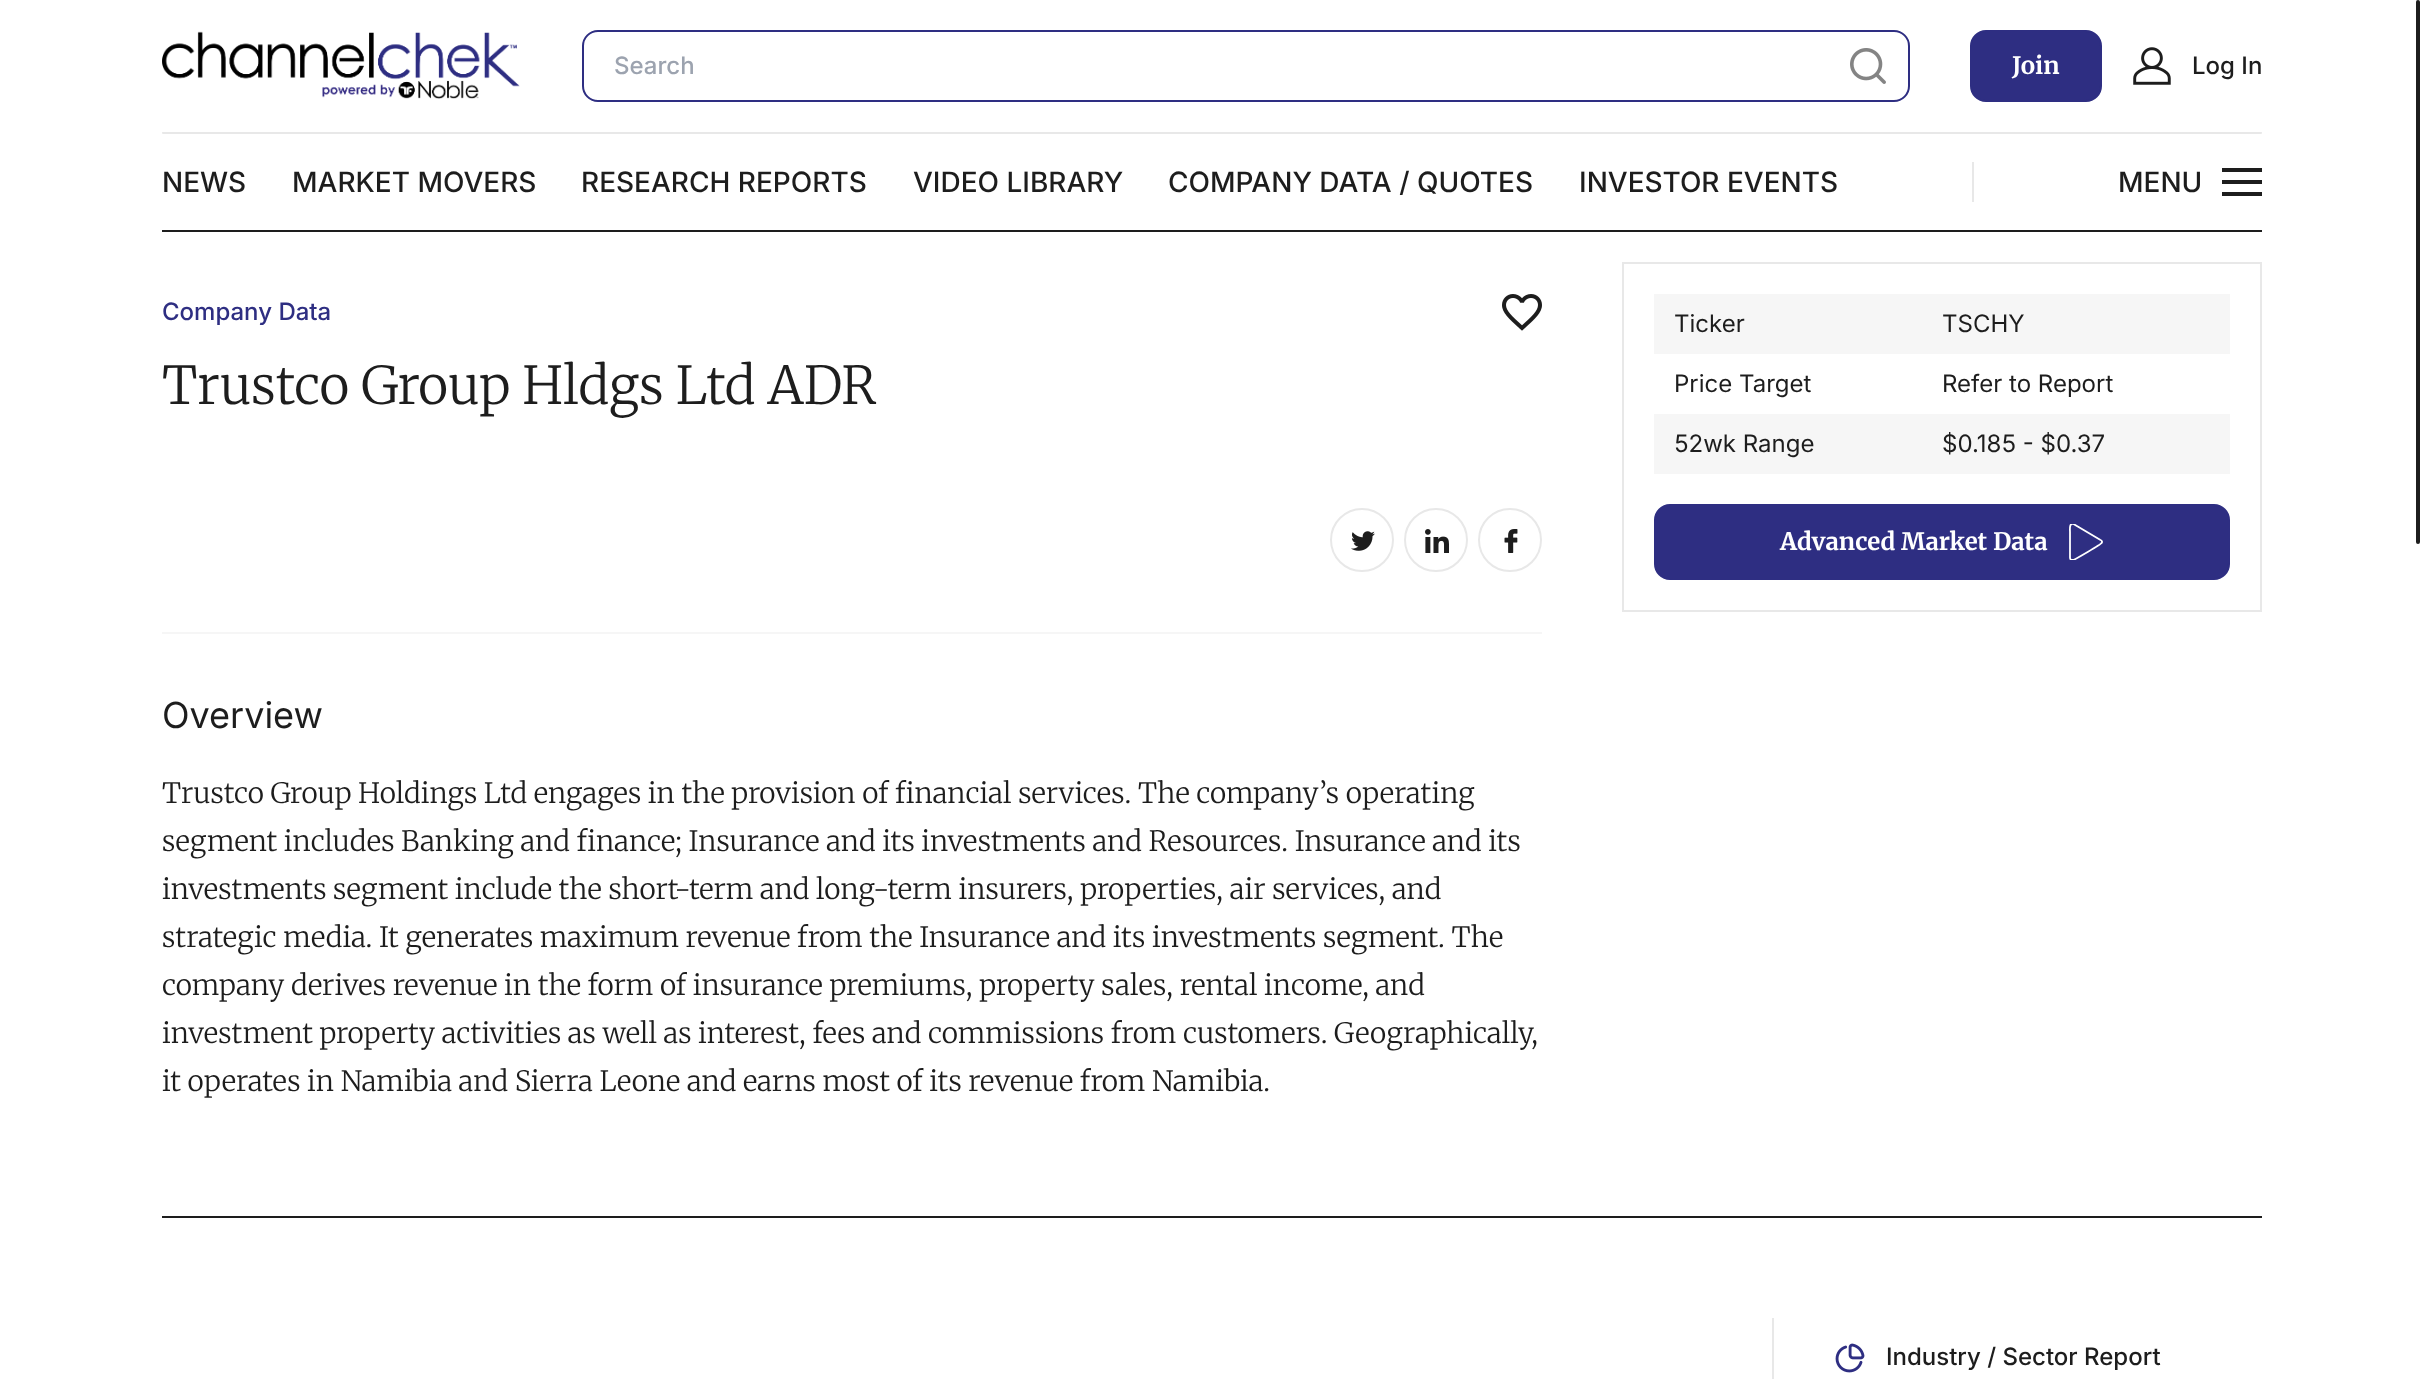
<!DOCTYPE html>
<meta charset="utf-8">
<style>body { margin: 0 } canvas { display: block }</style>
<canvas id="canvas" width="2424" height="1379"></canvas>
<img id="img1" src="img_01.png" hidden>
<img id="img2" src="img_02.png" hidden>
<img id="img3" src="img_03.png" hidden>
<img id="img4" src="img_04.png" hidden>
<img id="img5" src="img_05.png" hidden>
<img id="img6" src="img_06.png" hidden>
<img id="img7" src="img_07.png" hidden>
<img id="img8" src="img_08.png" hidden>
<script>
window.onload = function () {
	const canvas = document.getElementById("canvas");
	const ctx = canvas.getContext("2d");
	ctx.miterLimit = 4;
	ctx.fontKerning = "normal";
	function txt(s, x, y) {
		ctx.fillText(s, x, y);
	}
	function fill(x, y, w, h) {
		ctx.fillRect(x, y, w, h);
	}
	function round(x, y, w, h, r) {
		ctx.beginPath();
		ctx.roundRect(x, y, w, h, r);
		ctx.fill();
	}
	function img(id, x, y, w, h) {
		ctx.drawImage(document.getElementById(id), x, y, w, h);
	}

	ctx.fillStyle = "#FFFFFF";
	fill(0, 0, 2424, 1379);
	img("img1", 162, 31, 358, 68);
	ctx.beginPath();
	ctx.roundRect(583, 31, 1326, 70, 15);
	ctx.strokeStyle = "#2E2E82";
	ctx.lineWidth = 2;
	ctx.stroke();
	img("img2", 1850, 48, 36, 36);
	ctx.fillStyle = "#E8E8E8";
	fill(162, 132, 2100, 2);
	ctx.fillStyle = "#FFFFFF";
	ctx.beginPath();
	ctx.moveTo(2262, 132);
	ctx.lineTo(2262, 144);
	ctx.lineTo(2260, 142);
	ctx.closePath();
	ctx.fill();
	ctx.beginPath();
	ctx.moveTo(162, 144);
	ctx.lineTo(162, 132);
	ctx.lineTo(164, 142);
	ctx.closePath();
	ctx.fill();
	ctx.fillStyle = "#2E2E82";
	ctx.beginPath();
	ctx.roundRect(1971, 31, 130, 70, 15);
	ctx.fill();
	ctx.stroke();
	img("img3", 2133, 47, 38, 38);
	ctx.fillStyle = "#1D1D1D";
	fill(162, 230, 2100, 2);
	ctx.fillStyle = "#E8E8E8";
	fill(1972, 162, 2, 40);
	ctx.fillStyle = "#1D1D1D";
	fill(2222, 168, 40, 4);
	fill(2222, 180, 40, 4);
	fill(2222, 192, 40, 4);
	round(2416, 0, 4, 544, 2);
	fill(162, 1216, 2100, 2);
	img("img4", 1502, 294, 40, 37);
	ctx.beginPath();
	ctx.arc(1362, 540, 31, 0, Math.PI * 2);
	ctx.strokeStyle = "#E8E8E8";
	ctx.stroke();
	img("img5", 1351, 531, 24, 20);
	ctx.beginPath();
	ctx.arc(1436, 540, 31, 0, Math.PI * 2);
	ctx.stroke();
	img("img6", 1425, 529, 24, 24);
	ctx.beginPath();
	ctx.arc(1510, 540, 31, 0, Math.PI * 2);
	ctx.stroke();
	img("img7", 1504, 529, 14, 24);
	ctx.strokeRect(1623, 263, 638, 348);
	ctx.fillStyle = "#F6F6F6";
	fill(1654, 294, 576, 60);
	fill(1654, 414, 576, 60);
	ctx.fillStyle = "#2E2E82";
	ctx.beginPath();
	ctx.roundRect(1655, 505, 574, 74, 15);
	ctx.fill();
	ctx.strokeStyle = "#2E2E82";
	ctx.stroke();
	ctx.save();
	ctx.beginPath();
	ctx.rect(2068, 524, 36, 36);
	ctx.clip();
	ctx.beginPath();
	ctx.moveTo(2100.5, 540);
	ctx.lineTo(2073.5, 524);
	ctx.bezierCurveTo(2069, 522.5, 2070, 530, 2070, 532);
	ctx.lineTo(2070, 557.5);
	ctx.bezierCurveTo(2070, 558.5, 2070.5, 559.5, 2071, 560);
	ctx.lineTo(2073.5, 560);
	ctx.bezierCurveTo(2075.5, 559, 2101, 544.5, 2101.5, 543);
	ctx.bezierCurveTo(2102.5, 542, 2102, 540.5, 2100.5, 540);
	ctx.closePath();
	ctx.strokeStyle = "#FFFFFF";
	ctx.lineWidth = 1.8;
	ctx.stroke();
	ctx.restore();
	ctx.fillStyle = "#F6F6F6";
	fill(162, 632, 1380, 2);
	ctx.fillStyle = "#E8E8E8";
	fill(1772, 1318, 2, 61);
	img("img8", 1835, 1343, 30, 30);
	ctx.font = "500 24px Inter";
	ctx.fillStyle = "#9CA3AF";
	txt("Search", 614, 74);
	ctx.font = "bold 24px Merriweather";
	ctx.fillStyle = "#FFFFFF";
	txt("Join", 2012, 74);
	ctx.font = "500 24px Inter";
	ctx.fillStyle = "#1D1D1D";
	txt("Log In", 2192, 74);
	ctx.font = "500 28px Inter";
	txt("NEWS", 162, 192);
	txt("MARKET MOVERS", 292, 192);
	txt("RESEARCH REPORTS", 581, 192);
	txt("VIDEO LIBRARY", 913, 192);
	txt("COMPANY DATA / QUOTES", 1168, 192);
	txt("INVESTOR EVENTS", 1579, 192);
	txt("MENU", 2118, 192);
	ctx.font = "500 24px Inter";
	ctx.fillStyle = "#2E2E82";
	txt("Company Data", 162, 320);
	ctx.font = "300 52px Merriweather";
	ctx.fillStyle = "#1D1D1D";
	txt("Trustco Group Hldgs Ltd ADR", 162, 404);
	ctx.font = "24px Inter";
	txt("Ticker", 1674, 332);
	txt("TSCHY", 1942, 332);
	txt("Price Target", 1674, 392);
	txt("Refer to Report", 1942, 392);
	txt("52wk Range", 1674, 452);
	txt("$0.185 - $0.37", 1942, 452);
	ctx.font = "bold 24px Merriweather";
	ctx.fillStyle = "#FFFFFF";
	txt("Advanced Market Data", 1780, 550);
	ctx.font = "36px Inter";
	ctx.fillStyle = "#1D1D1D";
	txt("Overview", 162, 728);
	ctx.font = "300 28px 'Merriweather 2'";
	txt("Trustco Group Holdings Ltd engages in the provision of financial services. The company’s operating", 162, 803);
	txt("segment includes Banking and finance; Insurance and its investments and Resources. Insurance and its", 162, 851);
	txt("investments segment include the short-term and long-term insurers, properties, air services, and", 162, 899);
	txt("strategic media. It generates maximum revenue from the Insurance and its investments segment. The", 162, 947);
	txt("company derives revenue in the form of insurance premiums, property sales, rental income, and", 162, 995);
	txt("investment property activities as well as interest, fees and commissions from customers. Geographically,", 162, 1043);
	txt("it operates in Namibia and Sierra Leone and earns most of its revenue from Namibia.", 162, 1091);
	ctx.font = "500 24px Inter";
	txt("Industry / Sector Report", 1886, 1365);
};
</script>
